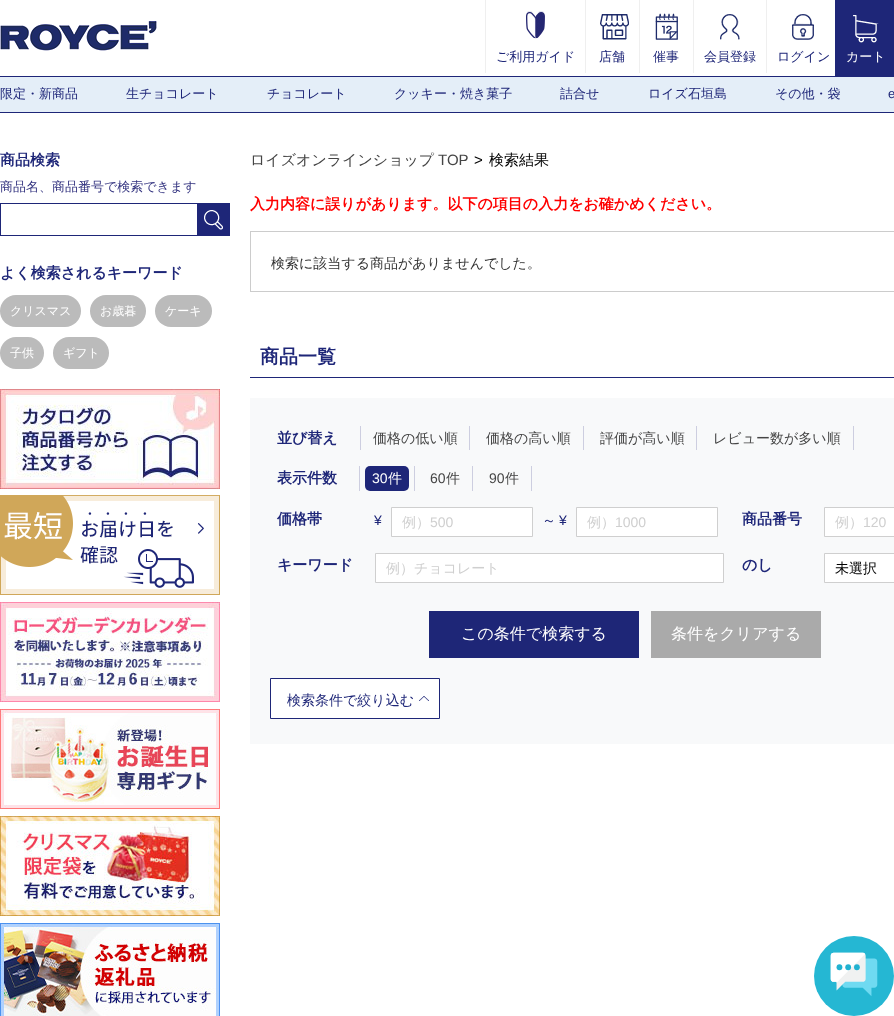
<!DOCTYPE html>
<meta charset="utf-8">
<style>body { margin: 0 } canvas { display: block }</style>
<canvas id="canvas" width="894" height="1016"></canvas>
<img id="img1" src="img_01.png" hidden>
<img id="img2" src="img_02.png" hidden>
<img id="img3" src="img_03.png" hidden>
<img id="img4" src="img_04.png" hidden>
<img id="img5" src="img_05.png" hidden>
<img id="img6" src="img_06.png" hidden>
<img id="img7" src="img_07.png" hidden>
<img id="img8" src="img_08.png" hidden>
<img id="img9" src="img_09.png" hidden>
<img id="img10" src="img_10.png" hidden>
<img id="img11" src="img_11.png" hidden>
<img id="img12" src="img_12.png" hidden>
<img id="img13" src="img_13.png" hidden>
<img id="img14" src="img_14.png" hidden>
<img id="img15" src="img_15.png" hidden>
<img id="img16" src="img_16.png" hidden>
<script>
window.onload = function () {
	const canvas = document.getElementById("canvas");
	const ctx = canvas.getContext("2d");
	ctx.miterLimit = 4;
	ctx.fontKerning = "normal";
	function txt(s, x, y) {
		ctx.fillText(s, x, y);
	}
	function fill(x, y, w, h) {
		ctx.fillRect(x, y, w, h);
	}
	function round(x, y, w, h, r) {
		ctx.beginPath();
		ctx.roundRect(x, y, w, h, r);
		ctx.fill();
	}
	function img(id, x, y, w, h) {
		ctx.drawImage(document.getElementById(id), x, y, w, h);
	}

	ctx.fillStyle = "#FFFFFF";
	fill(0, 0, 894, 1016);
	img("img1", 0, 21, 157, 30);
	ctx.fillStyle = "#EFEFEF";
	fill(485, 0, 1, 73);
	img("img2", 526, 11, 19, 28);
	fill(585, 0, 1, 73);
	img("img3", 600, 14, 29, 26);
	fill(639, 0, 1, 73);
	img("img4", 655, 13, 23, 27);
	fill(693, 0, 1, 73);
	img("img5", 720, 14, 20, 26);
	fill(766, 0, 1, 73);
	img("img6", 792, 14, 22, 26);
	ctx.fillStyle = "#1E2678";
	fill(835, 0, 59, 76);
	img("img7", 853, 15, 26, 28);
	ctx.fillStyle = "#E4EEF8";
	fill(0, 77, 894, 35);
	ctx.fillStyle = "#1E2678";
	fill(0, 76, 894, 1);
	fill(0, 112, 894, 1);
	ctx.strokeStyle = "#1E2678";
	ctx.strokeRect(0.5, 203.5, 229, 32);
	img("img8", 197, 204, 32, 31);
	ctx.fillStyle = "#BBBBBB";
	round(0, 295, 81, 32, 16);
	round(90, 295, 56, 32, 16);
	round(155, 295, 57, 32, 16);
	round(0, 337, 44, 32, 16);
	round(53, 337, 56, 32, 16);
	img("img9", 0, 389, 220, 100);
	img("img10", 0, 495, 220, 100);
	img("img11", 0, 602, 220, 100);
	img("img12", 0, 709, 220, 100);
	img("img13", 0, 816, 220, 100);
	img("img14", 0, 923, 220, 93);
	ctx.strokeStyle = "#CCCCCC";
	ctx.strokeRect(250.5, 231.5, 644, 60);
	ctx.fillStyle = "#1E2678";
	fill(250, 377, 644, 1);
	ctx.fillStyle = "#F8F9FA";
	fill(250, 398, 644, 346);
	ctx.fillStyle = "#CDCEE0";
	fill(469, 426, 1, 24);
	fill(360, 426, 1, 24);
	fill(583, 426, 1, 24);
	fill(696, 426, 1, 24);
	fill(853, 426, 1, 24);
	fill(414, 466, 1, 25);
	fill(359, 466, 1, 25);
	ctx.fillStyle = "#1E2678";
	round(365, 466, 44, 25, 5);
	ctx.fillStyle = "#CDCEE0";
	fill(472, 466, 1, 25);
	fill(531, 466, 1, 25);
	ctx.fillStyle = "#FFFFFF";
	ctx.beginPath();
	ctx.rect(391.5, 507.5, 141, 29);
	ctx.fill();
	ctx.strokeStyle = "#CFCFCF";
	ctx.stroke();
	ctx.beginPath();
	ctx.rect(576.5, 507.5, 141, 29);
	ctx.fill();
	ctx.stroke();
	ctx.beginPath();
	ctx.rect(375.5, 553.5, 348, 29);
	ctx.fill();
	ctx.stroke();
	ctx.beginPath();
	ctx.rect(824.5, 507.5, 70, 29);
	ctx.fill();
	ctx.stroke();
	ctx.beginPath();
	ctx.rect(824.5, 553.5, 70, 29);
	ctx.fill();
	ctx.stroke();
	ctx.fillStyle = "#1E2677";
	fill(429, 611, 210, 47);
	ctx.fillStyle = "#AAAAAA";
	fill(651, 611, 170, 47);
	ctx.fillStyle = "#FFFFFF";
	ctx.beginPath();
	ctx.rect(270.5, 678.5, 169, 40);
	ctx.fill();
	ctx.strokeStyle = "#1E2678";
	ctx.stroke();
	img("img15", 419, 696, 10, 5);
	img("img16", 814, 936, 80, 80);
	ctx.font = "500 13px WenQuanYi Zen Hei";
	ctx.fillStyle = "#1E2678";
	txt("ご利用ガイド", 496, 61);
	txt("店舗", 599, 61);
	txt("催事", 653, 61);
	txt("会員登録", 704, 61);
	txt("ログイン", 777, 61);
	ctx.fillStyle = "#FFFFFF";
	txt("カート", 846, 61);
	ctx.fillStyle = "#1E2678";
	txt("限定・新商品", 0, 98);
	txt("生チョコレート", 126, 98);
	txt("チョコレート", 267, 98);
	txt("クッキー・焼き菓子", 394, 98);
	txt("詰合せ", 560, 98);
	txt("ロイズ石垣島", 648, 98);
	txt("その他・袋", 775, 98);
	ctx.font = "13px Liberation Sans";
	txt("e", 888, 98);
	ctx.font = "bold 15px WenQuanYi Zen Hei";
	txt("商品検索", 0, 165);
	ctx.font = "500 13px WenQuanYi Zen Hei";
	ctx.fillStyle = "#32327F";
	txt("商品名、商品番号で検索できます", 0, 191);
	ctx.font = "bold 15px WenQuanYi Zen Hei";
	ctx.fillStyle = "#1E2678";
	txt("よく検索されるキーワード", 0, 278);
	ctx.font = "500 12px WenQuanYi Zen Hei";
	ctx.fillStyle = "#FFFFFF";
	txt("クリスマス", 10, 315);
	txt("お歳暮", 100, 315);
	txt("ケーキ", 165, 315);
	txt("子供", 10, 357);
	txt("ギフト", 63, 357);
	ctx.font = "500 15px WenQuanYi Zen Hei";
	ctx.fillStyle = "#454545";
	txt("ロイズオンラインショップ", 250, 165);
	ctx.font = "15px Liberation Sans";
	txt("TOP", 438, 165);
	ctx.fillStyle = "#000000";
	txt(">", 474, 165);
	ctx.font = "500 15px WenQuanYi Zen Hei";
	txt("検索結果", 489, 165);
	ctx.font = "bold 15px WenQuanYi Zen Hei";
	ctx.fillStyle = "#FF0000";
	txt("入力内容に誤りがあります。以下の項目の入力をお確かめください。", 250, 209);
	ctx.font = "500 14px WenQuanYi Zen Hei";
	ctx.fillStyle = "#333333";
	txt("検索に該当する商品がありませんでした。", 271, 268);
	ctx.font = "bold 19px WenQuanYi Zen Hei";
	ctx.fillStyle = "#1E2678";
	txt("商品一覧", 260, 363);
	ctx.font = "bold 15px WenQuanYi Zen Hei";
	txt("並び替え", 277, 443);
	ctx.font = "500 14px WenQuanYi Zen Hei";
	ctx.fillStyle = "#454545";
	txt("価格の低い順", 373, 443);
	txt("価格の高い順", 486, 443);
	txt("評価が高い順", 600, 443);
	txt("レビュー数が多い順", 713, 443);
	ctx.font = "bold 15px WenQuanYi Zen Hei";
	ctx.fillStyle = "#1E2678";
	txt("表示件数", 277, 483);
	ctx.font = "14px Liberation Sans";
	ctx.fillStyle = "#FFFFFF";
	txt("30", 372, 483);
	ctx.font = "500 14px WenQuanYi Zen Hei";
	txt("件", 388, 483);
	ctx.font = "14px Liberation Sans";
	ctx.fillStyle = "#454545";
	txt("60", 430, 483);
	ctx.font = "500 14px WenQuanYi Zen Hei";
	txt("件", 446, 483);
	ctx.font = "14px Liberation Sans";
	txt("90", 489, 483);
	ctx.font = "500 14px WenQuanYi Zen Hei";
	txt("件", 505, 483);
	ctx.font = "bold 15px WenQuanYi Zen Hei";
	ctx.fillStyle = "#1E2678";
	txt("価格帯", 277, 524);
	ctx.font = "14px Liberation Sans";
	txt("¥", 374, 525);
	ctx.font = "500 14px WenQuanYi Zen Hei";
	ctx.fillStyle = "#CFCFCF";
	txt("例）", 402, 527);
	ctx.font = "14px Liberation Sans";
	txt("500", 430, 527);
	ctx.font = "500 14px WenQuanYi Zen Hei";
	ctx.fillStyle = "#1E2678";
	txt("～", 542, 525);
	ctx.font = "14px Liberation Sans";
	txt("¥", 559, 525);
	ctx.font = "500 14px WenQuanYi Zen Hei";
	ctx.fillStyle = "#CFCFCF";
	txt("例）", 587, 527);
	ctx.font = "14px Liberation Sans";
	txt("1000", 615, 527);
	ctx.font = "bold 15px WenQuanYi Zen Hei";
	ctx.fillStyle = "#1E2678";
	txt("キーワード", 277, 570);
	ctx.font = "500 14px WenQuanYi Zen Hei";
	ctx.fillStyle = "#CFCFCF";
	txt("例）チョコレート", 386, 573);
	ctx.font = "bold 15px WenQuanYi Zen Hei";
	ctx.fillStyle = "#1E2678";
	txt("商品番号", 742, 524);
	ctx.font = "500 14px WenQuanYi Zen Hei";
	ctx.fillStyle = "#CFCFCF";
	txt("例）", 835, 527);
	ctx.font = "14px Liberation Sans";
	txt("120", 863, 527);
	ctx.font = "bold 15px WenQuanYi Zen Hei";
	ctx.fillStyle = "#1E2678";
	txt("のし", 742, 570);
	ctx.font = "500 14px WenQuanYi Zen Hei";
	ctx.fillStyle = "#000000";
	txt("未選択", 835, 573);
	ctx.font = "500 16px WenQuanYi Zen Hei";
	ctx.fillStyle = "#FFFFFF";
	txt("この条件で検索する", 461, 639);
	txt("条件をクリアする", 671, 639);
	ctx.font = "500 14px WenQuanYi Zen Hei";
	ctx.fillStyle = "#1E2678";
	txt("検索条件で絞り込む", 287, 705);
};
</script>
